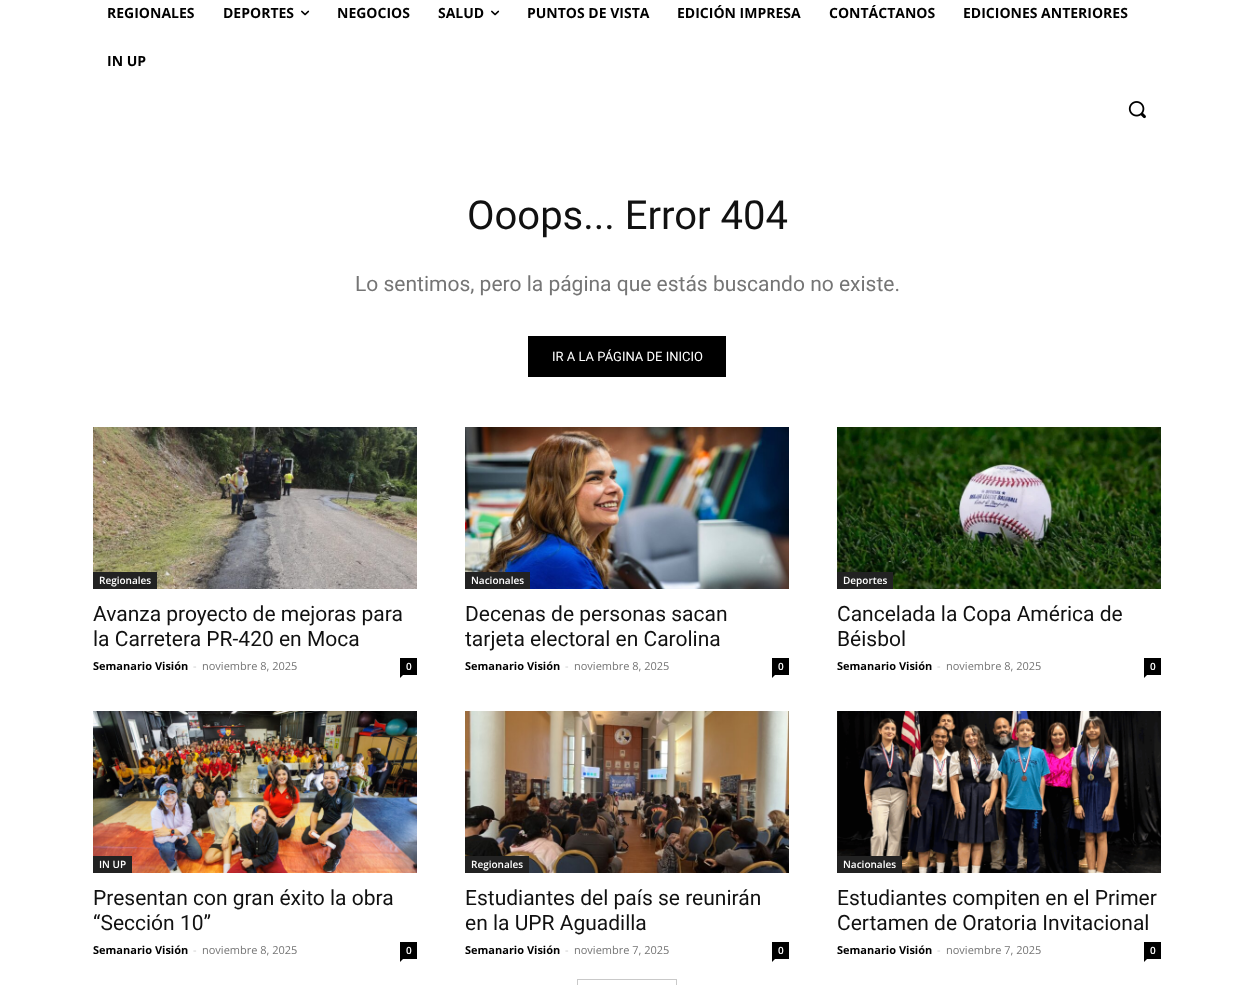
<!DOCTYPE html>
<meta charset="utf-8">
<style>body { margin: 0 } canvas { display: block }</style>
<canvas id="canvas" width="1254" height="985"></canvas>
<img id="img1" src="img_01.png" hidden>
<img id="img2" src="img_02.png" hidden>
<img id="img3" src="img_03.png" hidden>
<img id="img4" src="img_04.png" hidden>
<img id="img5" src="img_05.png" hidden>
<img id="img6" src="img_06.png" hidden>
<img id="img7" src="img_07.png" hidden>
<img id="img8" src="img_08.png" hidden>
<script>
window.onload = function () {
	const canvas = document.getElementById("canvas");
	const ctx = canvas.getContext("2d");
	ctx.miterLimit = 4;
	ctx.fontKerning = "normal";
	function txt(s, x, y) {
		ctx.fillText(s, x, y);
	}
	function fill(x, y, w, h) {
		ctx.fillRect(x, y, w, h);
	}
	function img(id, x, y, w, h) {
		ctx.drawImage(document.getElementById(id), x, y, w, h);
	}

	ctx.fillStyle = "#FFFFFF";
	fill(0, 0, 1254, 985);
	img("img1", 301, 10, 9, 6);
	img("img1", 491, 10, 9, 6);
	img("img2", 1128, 101, 18, 18);
	ctx.fillStyle = "#000000";
	fill(528, 336, 198, 41);
	img("img3", 93, 427, 324, 162);
	ctx.fillStyle = "#222222";
	fill(93, 572, 64, 17);
	ctx.fillStyle = "#000000";
	fill(400, 658, 17, 17);
	ctx.beginPath();
	ctx.moveTo(400, 675);
	ctx.lineTo(403, 675);
	ctx.lineTo(400, 678);
	ctx.closePath();
	ctx.fill();
	img("img4", 465, 427, 324, 162);
	ctx.fillStyle = "#222222";
	fill(465, 572, 65, 17);
	ctx.fillStyle = "#000000";
	fill(772, 658, 17, 17);
	ctx.beginPath();
	ctx.moveTo(772, 675);
	ctx.lineTo(775, 675);
	ctx.lineTo(772, 678);
	ctx.closePath();
	ctx.fill();
	img("img5", 837, 427, 324, 162);
	ctx.fillStyle = "#222222";
	fill(837, 572, 56, 17);
	ctx.fillStyle = "#000000";
	fill(1144, 658, 17, 17);
	ctx.beginPath();
	ctx.moveTo(1144, 675);
	ctx.lineTo(1147, 675);
	ctx.lineTo(1144, 678);
	ctx.closePath();
	ctx.fill();
	img("img6", 93, 711, 324, 162);
	ctx.fillStyle = "#222222";
	fill(93, 856, 39, 17);
	ctx.fillStyle = "#000000";
	fill(400, 942, 17, 17);
	ctx.beginPath();
	ctx.moveTo(400, 959);
	ctx.lineTo(403, 959);
	ctx.lineTo(400, 962);
	ctx.closePath();
	ctx.fill();
	img("img7", 465, 711, 324, 162);
	ctx.fillStyle = "#222222";
	fill(465, 856, 64, 17);
	ctx.fillStyle = "#000000";
	fill(772, 942, 17, 17);
	ctx.beginPath();
	ctx.moveTo(772, 959);
	ctx.lineTo(775, 959);
	ctx.lineTo(772, 962);
	ctx.closePath();
	ctx.fill();
	img("img8", 837, 711, 324, 162);
	ctx.fillStyle = "#222222";
	fill(837, 856, 65, 17);
	ctx.fillStyle = "#000000";
	fill(1144, 942, 17, 17);
	ctx.beginPath();
	ctx.moveTo(1144, 959);
	ctx.lineTo(1147, 959);
	ctx.lineTo(1144, 962);
	ctx.closePath();
	ctx.fill();
	ctx.strokeStyle = "#C9C9C9";
	ctx.strokeRect(577.5, 979.5, 99, 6);
	ctx.font = "bold 14px Open Sans";
	txt("REGIONALES", 107, 18);
	txt("DEPORTES", 223, 18);
	txt("NEGOCIOS", 337, 18);
	txt("SALUD", 438, 18);
	txt("PUNTOS DE VISTA", 527, 18);
	txt("EDICIÓN IMPRESA", 677, 18);
	txt("CONTÁCTANOS", 829, 18);
	txt("EDICIONES ANTERIORES", 963, 18);
	txt("IN UP", 107, 66);
	ctx.font = "40px Roboto";
	ctx.fillStyle = "#111111";
	txt("Ooops... Error 404", 467, 229);
	ctx.font = "21px Roboto";
	ctx.fillStyle = "#757575";
	txt("Lo sentimos, pero la página que estás buscando no existe.", 355, 291);
	ctx.font = "13px Roboto";
	ctx.fillStyle = "#FFFFFF";
	txt("IR A LA PÁGINA DE INICIO", 552, 361);
	ctx.font = "600 10px Open Sans";
	txt("Regionales", 99, 584);
	ctx.font = "21px Roboto";
	ctx.fillStyle = "#111111";
	txt("Avanza proyecto de mejoras para", 93, 621);
	txt("la Carretera PR-420 en Moca", 93, 646);
	ctx.font = "bold 11px Open Sans";
	ctx.fillStyle = "#000000";
	txt("Semanario Visión", 93, 670);
	ctx.font = "11px Open Sans";
	ctx.fillStyle = "#CCCCCC";
	txt("-", 193, 670);
	ctx.fillStyle = "#757575";
	txt("noviembre 8, 2025", 202, 670);
	ctx.font = "600 10px Open Sans";
	ctx.fillStyle = "#FFFFFF";
	txt("0", 406, 670);
	txt("Nacionales", 471, 584);
	ctx.font = "21px Roboto";
	ctx.fillStyle = "#111111";
	txt("Decenas de personas sacan", 465, 621);
	txt("tarjeta electoral en Carolina", 465, 646);
	ctx.font = "bold 11px Open Sans";
	ctx.fillStyle = "#000000";
	txt("Semanario Visión", 465, 670);
	ctx.font = "11px Open Sans";
	ctx.fillStyle = "#CCCCCC";
	txt("-", 565, 670);
	ctx.fillStyle = "#757575";
	txt("noviembre 8, 2025", 574, 670);
	ctx.font = "600 10px Open Sans";
	ctx.fillStyle = "#FFFFFF";
	txt("0", 778, 670);
	txt("Deportes", 843, 584);
	ctx.font = "21px Roboto";
	ctx.fillStyle = "#111111";
	txt("Cancelada la Copa América de", 837, 621);
	txt("Béisbol", 837, 646);
	ctx.font = "bold 11px Open Sans";
	ctx.fillStyle = "#000000";
	txt("Semanario Visión", 837, 670);
	ctx.font = "11px Open Sans";
	ctx.fillStyle = "#CCCCCC";
	txt("-", 937, 670);
	ctx.fillStyle = "#757575";
	txt("noviembre 8, 2025", 946, 670);
	ctx.font = "600 10px Open Sans";
	ctx.fillStyle = "#FFFFFF";
	txt("0", 1150, 670);
	txt("IN UP", 99, 868);
	ctx.font = "21px Roboto";
	ctx.fillStyle = "#111111";
	txt("Presentan con gran éxito la obra", 93, 905);
	txt("“Sección 10”", 93, 930);
	ctx.font = "bold 11px Open Sans";
	ctx.fillStyle = "#000000";
	txt("Semanario Visión", 93, 954);
	ctx.font = "11px Open Sans";
	ctx.fillStyle = "#CCCCCC";
	txt("-", 193, 954);
	ctx.fillStyle = "#757575";
	txt("noviembre 8, 2025", 202, 954);
	ctx.font = "600 10px Open Sans";
	ctx.fillStyle = "#FFFFFF";
	txt("0", 406, 954);
	txt("Regionales", 471, 868);
	ctx.font = "21px Roboto";
	ctx.fillStyle = "#111111";
	txt("Estudiantes del país se reunirán", 465, 905);
	txt("en la UPR Aguadilla", 465, 930);
	ctx.font = "bold 11px Open Sans";
	ctx.fillStyle = "#000000";
	txt("Semanario Visión", 465, 954);
	ctx.font = "11px Open Sans";
	ctx.fillStyle = "#CCCCCC";
	txt("-", 565, 954);
	ctx.fillStyle = "#757575";
	txt("noviembre 7, 2025", 574, 954);
	ctx.font = "600 10px Open Sans";
	ctx.fillStyle = "#FFFFFF";
	txt("0", 778, 954);
	txt("Nacionales", 843, 868);
	ctx.font = "21px Roboto";
	ctx.fillStyle = "#111111";
	txt("Estudiantes compiten en el Primer", 837, 905);
	txt("Certamen de Oratoria Invitacional", 837, 930);
	ctx.font = "bold 11px Open Sans";
	ctx.fillStyle = "#000000";
	txt("Semanario Visión", 837, 954);
	ctx.font = "11px Open Sans";
	ctx.fillStyle = "#CCCCCC";
	txt("-", 937, 954);
	ctx.fillStyle = "#757575";
	txt("noviembre 7, 2025", 946, 954);
	ctx.font = "600 10px Open Sans";
	ctx.fillStyle = "#FFFFFF";
	txt("0", 1150, 954);
};
</script>
